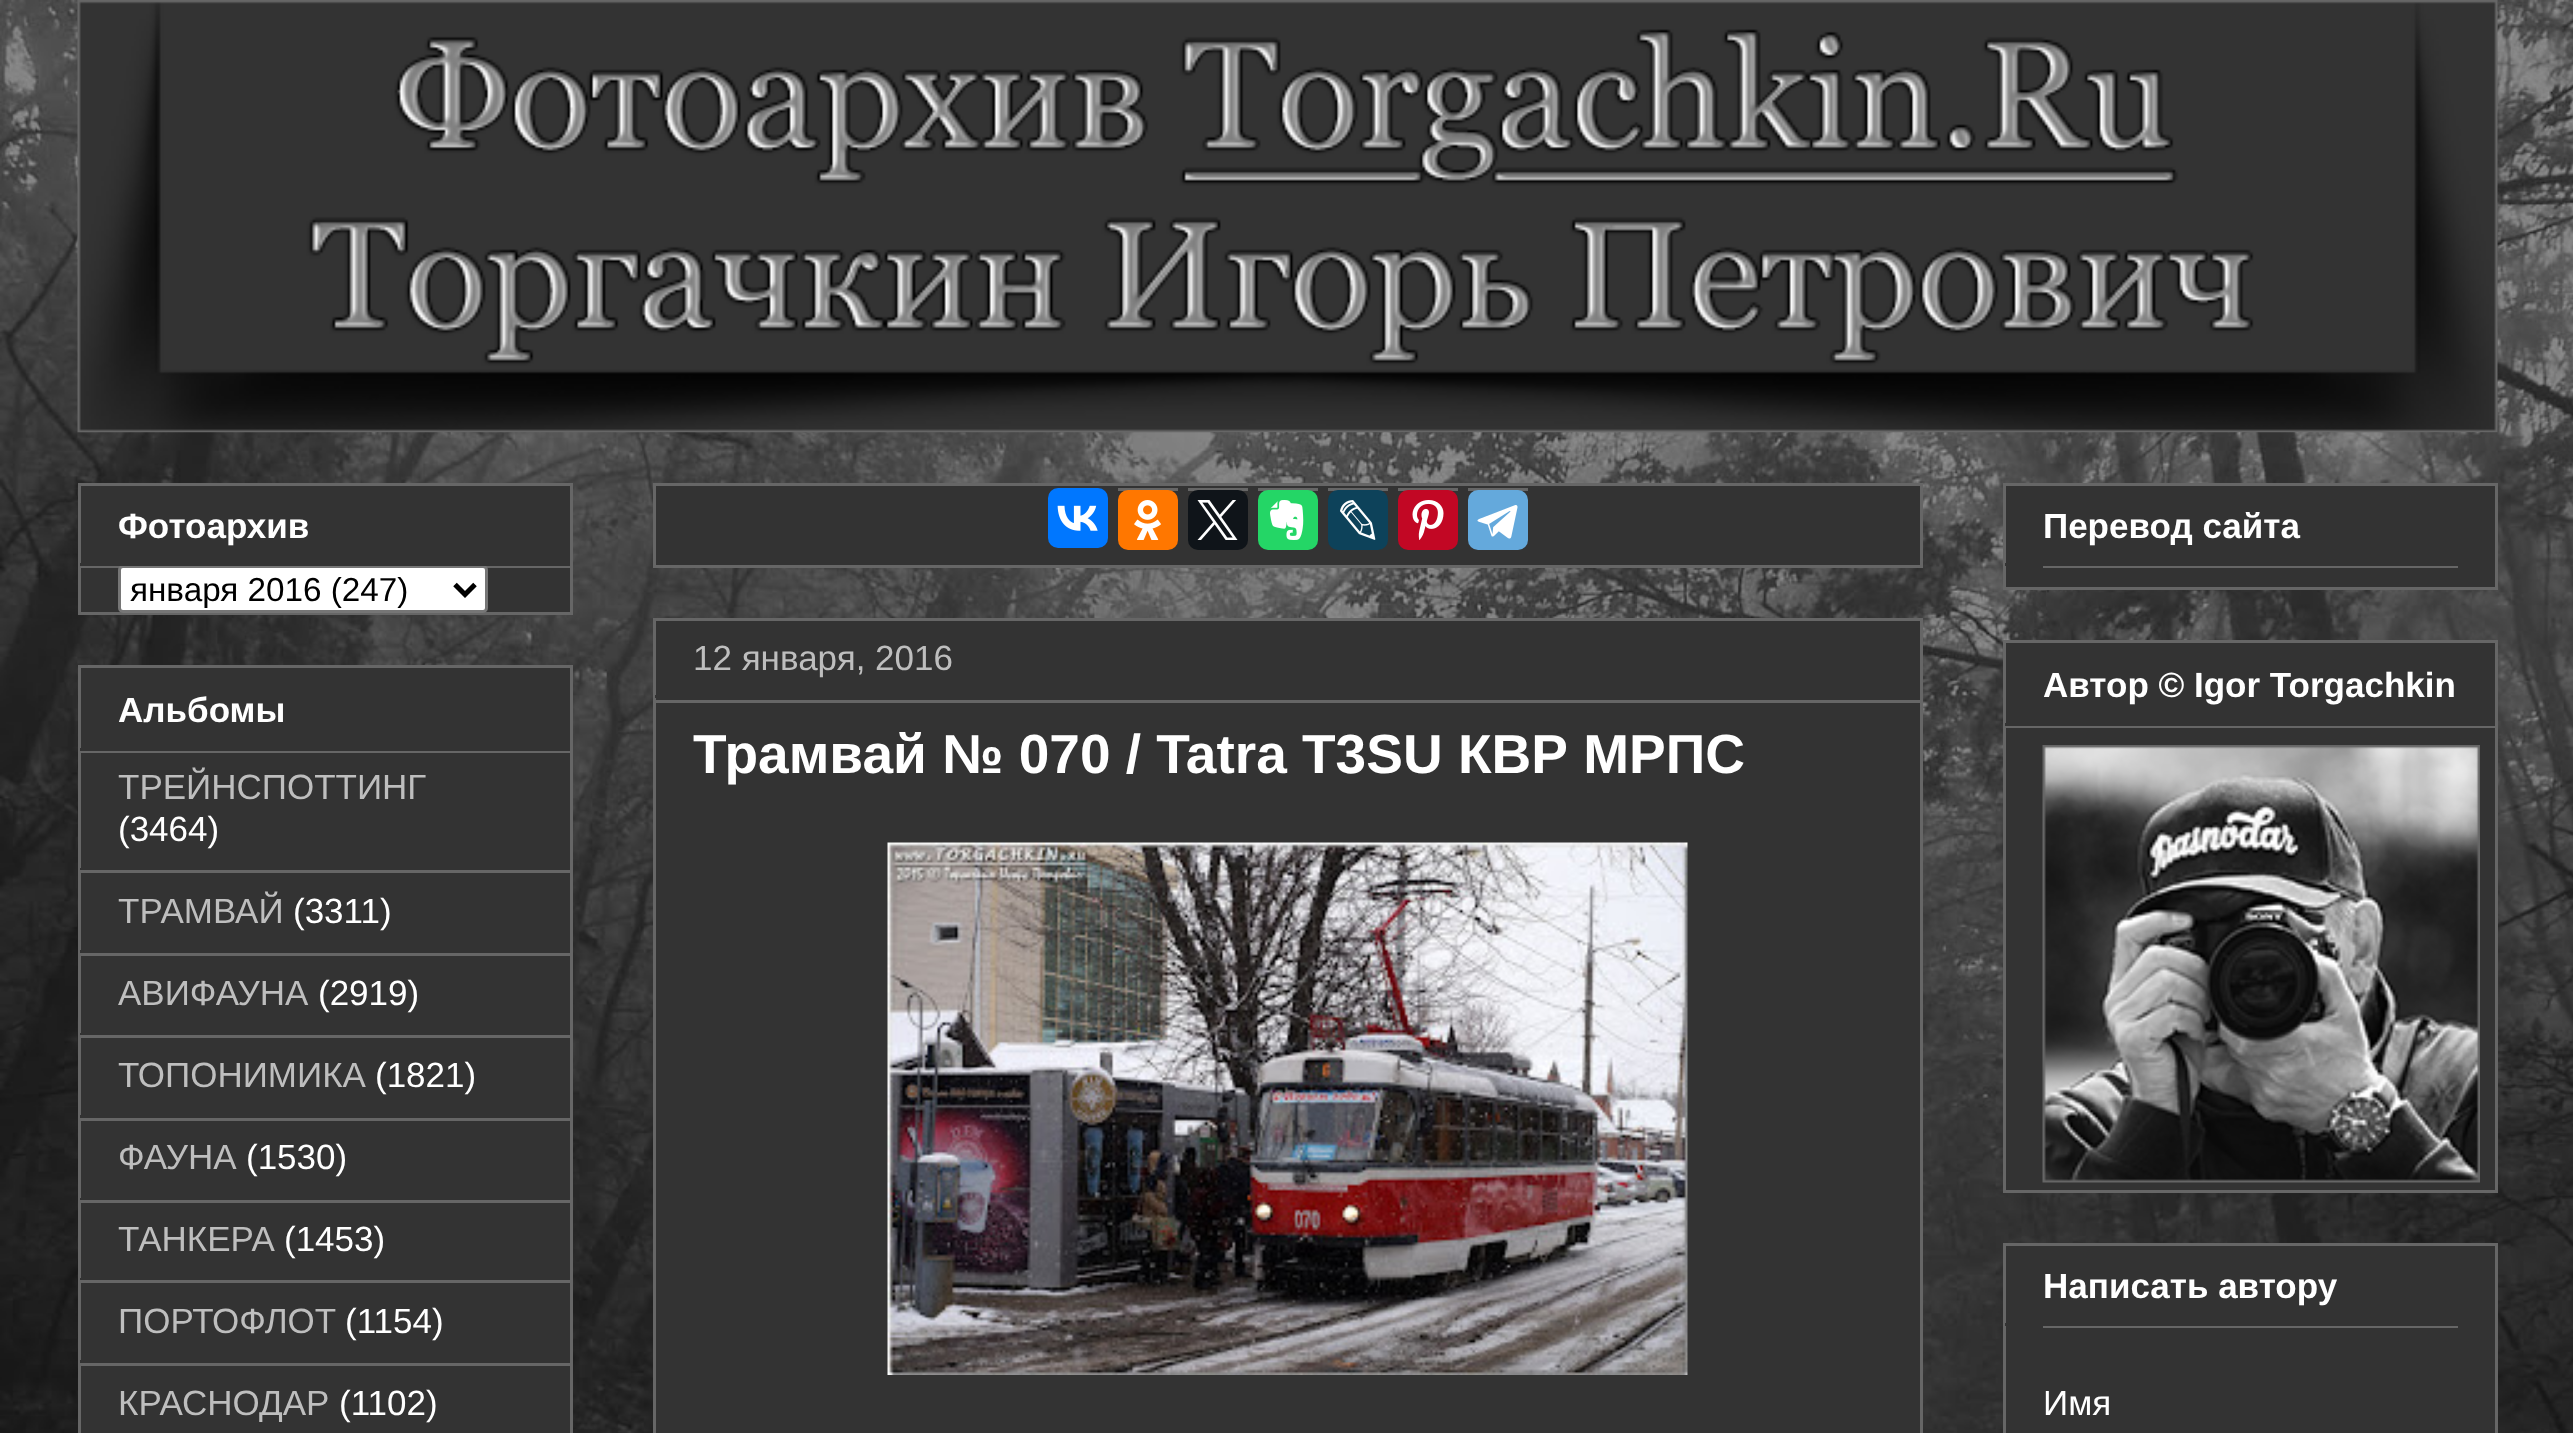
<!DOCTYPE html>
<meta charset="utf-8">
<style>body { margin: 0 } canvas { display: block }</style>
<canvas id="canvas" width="2573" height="1433"></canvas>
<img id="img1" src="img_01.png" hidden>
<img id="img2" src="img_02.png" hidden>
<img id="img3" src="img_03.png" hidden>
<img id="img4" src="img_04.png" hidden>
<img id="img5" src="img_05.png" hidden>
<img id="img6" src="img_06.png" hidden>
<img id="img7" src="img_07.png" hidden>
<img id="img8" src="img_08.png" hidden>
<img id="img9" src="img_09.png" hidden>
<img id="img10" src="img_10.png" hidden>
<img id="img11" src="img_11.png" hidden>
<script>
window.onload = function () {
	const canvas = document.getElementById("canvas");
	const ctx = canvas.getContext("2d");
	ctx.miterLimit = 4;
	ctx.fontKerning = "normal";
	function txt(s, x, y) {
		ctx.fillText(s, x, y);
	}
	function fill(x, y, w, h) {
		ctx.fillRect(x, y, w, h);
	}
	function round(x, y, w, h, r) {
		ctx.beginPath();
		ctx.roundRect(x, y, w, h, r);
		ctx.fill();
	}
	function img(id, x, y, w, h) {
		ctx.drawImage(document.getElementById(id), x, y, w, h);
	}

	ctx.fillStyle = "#FFFFFF";
	fill(0, 0, 2573, 1433);
	img("img1", 0, 0, 2573, 1433);
	img("img2", 77, 0, 2421, 433);
	ctx.fillStyle = "#333333";
	ctx.beginPath();
	ctx.rect(79.5, 484.5, 492, 129);
	ctx.fill();
	ctx.strokeStyle = "#666666";
	ctx.lineWidth = 3;
	ctx.stroke();
	ctx.fillStyle = "#666666";
	fill(80, 566, 490, 2);
	ctx.fillStyle = "#FFFFFF";
	ctx.beginPath();
	ctx.roundRect(119.5, 566.5, 367, 45, 3.5);
	ctx.fill();
	ctx.strokeStyle = "#767676";
	ctx.stroke();
	ctx.fillStyle = "#333333";
	fill(80, 563, 406, 3);
	ctx.beginPath();
	ctx.moveTo(455, 584.5);
	ctx.lineTo(465, 594.5);
	ctx.lineTo(475, 584.5);
	ctx.strokeStyle = "#000000";
	ctx.lineWidth = 5;
	ctx.stroke();
	ctx.beginPath();
	ctx.rect(79.5, 666.5, 492, 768);
	ctx.fill();
	ctx.strokeStyle = "#666666";
	ctx.lineWidth = 3;
	ctx.stroke();
	fill(80, 748, 1, 3);
	ctx.fillStyle = "#666666";
	fill(80, 751, 490, 2);
	ctx.fillStyle = "#333333";
	fill(80, 868, 1, 2);
	ctx.fillStyle = "#666666";
	fill(80, 870, 490, 3);
	ctx.fillStyle = "#333333";
	fill(80, 950, 1, 3);
	ctx.fillStyle = "#666666";
	fill(80, 953, 490, 3);
	ctx.fillStyle = "#333333";
	fill(80, 1033, 1, 2);
	ctx.fillStyle = "#666666";
	fill(80, 1035, 490, 3);
	ctx.fillStyle = "#333333";
	fill(80, 1115, 1, 3);
	ctx.fillStyle = "#666666";
	fill(80, 1118, 490, 3);
	ctx.fillStyle = "#333333";
	fill(80, 1198, 1, 2);
	ctx.fillStyle = "#666666";
	fill(80, 1200, 490, 3);
	ctx.fillStyle = "#333333";
	fill(80, 1278, 1, 2);
	ctx.fillStyle = "#666666";
	fill(80, 1280, 490, 3);
	ctx.fillStyle = "#333333";
	fill(80, 1360, 1, 3);
	ctx.fillStyle = "#666666";
	fill(80, 1363, 490, 3);
	ctx.fillStyle = "#333333";
	ctx.beginPath();
	ctx.rect(654.5, 484.5, 1267, 82);
	ctx.fill();
	ctx.stroke();
	ctx.fillStyle = "#0077FF";
	round(1048, 488, 60, 60, 10);
	img("img3", 1057, 505, 41, 26);
	ctx.fillStyle = "#666666";
	fill(1118, 488, 60, 3);
	ctx.fillStyle = "#FF7700";
	round(1118, 490, 60, 60, 10);
	img("img4", 1134, 500, 27, 40);
	ctx.fillStyle = "#666666";
	fill(1188, 488, 60, 3);
	ctx.fillStyle = "#0F1419";
	round(1188, 490, 60, 60, 10);
	img("img5", 1197, 500, 41, 40);
	ctx.fillStyle = "#666666";
	fill(1258, 488, 60, 3);
	ctx.fillStyle = "#24D666";
	round(1258, 490, 60, 60, 10);
	img("img6", 1270, 500, 34, 40);
	ctx.fillStyle = "#666666";
	fill(1328, 488, 60, 3);
	ctx.fillStyle = "#0D425A";
	round(1328, 490, 60, 60, 10);
	img("img7", 1340, 500, 36, 40);
	ctx.fillStyle = "#666666";
	fill(1398, 488, 60, 3);
	ctx.fillStyle = "#C20724";
	round(1398, 490, 60, 60, 10);
	img("img8", 1412, 500, 32, 40);
	ctx.fillStyle = "#666666";
	fill(1468, 488, 60, 3);
	ctx.fillStyle = "#64A9DC";
	round(1468, 490, 60, 60, 10);
	img("img9", 1477, 505, 41, 34);
	ctx.fillStyle = "#333333";
	ctx.beginPath();
	ctx.rect(654.5, 619.5, 1267, 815);
	ctx.fill();
	ctx.stroke();
	fill(655, 695, 1, 3);
	ctx.fillStyle = "#666666";
	fill(655, 700, 1265, 3);
	img("img10", 887, 842, 801, 533);
	ctx.fillStyle = "#333333";
	ctx.beginPath();
	ctx.rect(2004.5, 484.5, 492, 104);
	ctx.fill();
	ctx.stroke();
	fill(2005, 563, 1, 3);
	ctx.fillStyle = "#666666";
	fill(2043, 566, 415, 2);
	ctx.fillStyle = "#333333";
	ctx.beginPath();
	ctx.rect(2004.5, 641.5, 492, 550);
	ctx.fill();
	ctx.stroke();
	fill(2005, 723, 1, 3);
	ctx.fillStyle = "#666666";
	fill(2005, 726, 490, 2);
	img("img11", 2042, 745, 438, 438);
	ctx.fillStyle = "#333333";
	ctx.beginPath();
	ctx.rect(2004.5, 1244.5, 492, 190);
	ctx.fill();
	ctx.stroke();
	fill(2005, 1323, 1, 3);
	ctx.fillStyle = "#666666";
	fill(2043, 1326, 415, 2);
	ctx.font = "bold 35px Liberation Sans";
	ctx.fillStyle = "#FFFFFF";
	txt("Фотоархив", 118, 538);
	ctx.font = "33.25px Liberation Sans";
	ctx.fillStyle = "#000000";
	txt("января 2016 (247)", 130, 601);
	ctx.font = "bold 35px Liberation Sans";
	ctx.fillStyle = "#FFFFFF";
	txt("Альбомы", 118, 722);
	ctx.font = "35px Liberation Sans";
	ctx.fillStyle = "#BEBEBE";
	txt("ТРЕЙНСПОТТИНГ", 118, 799);
	ctx.fillStyle = "#FFFFFF";
	txt("(3464)", 118, 841);
	ctx.fillStyle = "#BEBEBE";
	txt("ТРАМВАЙ", 118, 923);
	ctx.fillStyle = "#FFFFFF";
	txt("(3311)", 293, 923);
	ctx.fillStyle = "#BEBEBE";
	txt("АВИФАУНА", 118, 1005);
	ctx.fillStyle = "#FFFFFF";
	txt("(2919)", 318, 1005);
	ctx.fillStyle = "#BEBEBE";
	txt("ТОПОНИМИКА", 118, 1087);
	ctx.fillStyle = "#FFFFFF";
	txt("(1821)", 375, 1087);
	ctx.fillStyle = "#BEBEBE";
	txt("ФАУНА", 118, 1169);
	ctx.fillStyle = "#FFFFFF";
	txt("(1530)", 246, 1169);
	ctx.fillStyle = "#BEBEBE";
	txt("ТАНКЕРА", 118, 1251);
	ctx.fillStyle = "#FFFFFF";
	txt("(1453)", 284, 1251);
	ctx.fillStyle = "#BEBEBE";
	txt("ПОРТОФЛОТ", 118, 1333);
	ctx.fillStyle = "#FFFFFF";
	txt("(1154)", 345, 1333);
	ctx.fillStyle = "#BEBEBE";
	txt("КРАСНОДАР", 118, 1415);
	ctx.fillStyle = "#FFFFFF";
	txt("(1102)", 339, 1415);
	ctx.fillStyle = "#BEBEBE";
	txt("12 января, 2016", 693, 670);
	ctx.font = "bold 55px Liberation Sans";
	ctx.fillStyle = "#FFFFFF";
	txt("Трамвай № 070 / Tatra T3SU КВР МРПС", 693, 773);
	ctx.font = "bold 35px Liberation Sans";
	txt("Перевод сайта", 2043, 538);
	txt("Автор © Igor Torgachkin", 2043, 697);
	txt("Написать автору", 2043, 1298);
	ctx.font = "35px Liberation Sans";
	txt("Имя", 2043, 1415);
};
</script>
